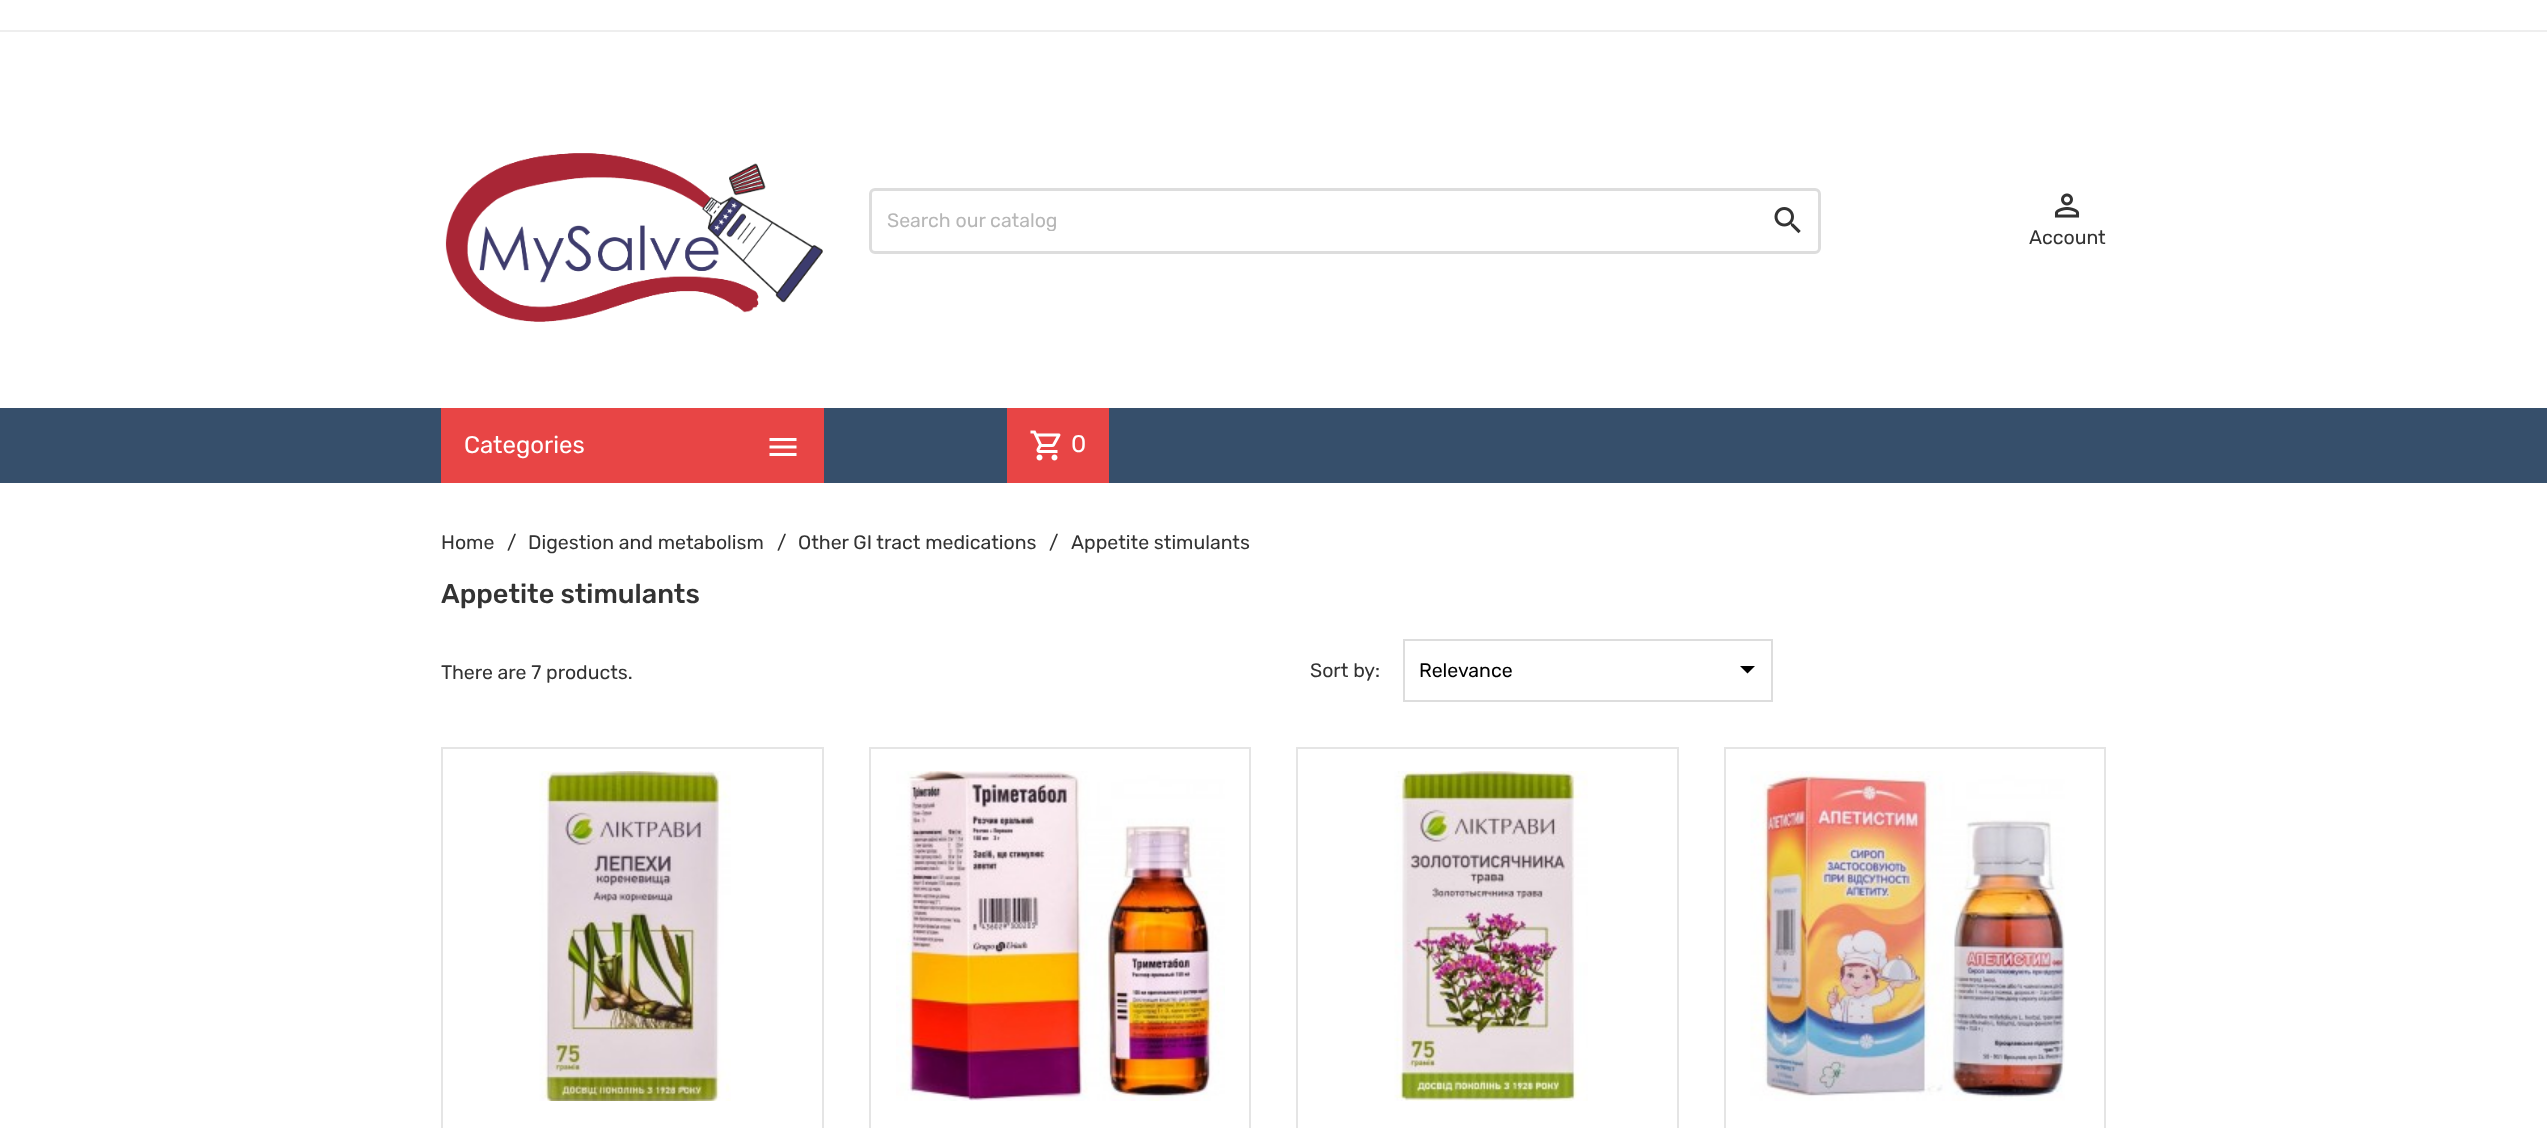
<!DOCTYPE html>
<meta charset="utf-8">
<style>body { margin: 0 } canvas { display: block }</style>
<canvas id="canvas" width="2547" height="1128"></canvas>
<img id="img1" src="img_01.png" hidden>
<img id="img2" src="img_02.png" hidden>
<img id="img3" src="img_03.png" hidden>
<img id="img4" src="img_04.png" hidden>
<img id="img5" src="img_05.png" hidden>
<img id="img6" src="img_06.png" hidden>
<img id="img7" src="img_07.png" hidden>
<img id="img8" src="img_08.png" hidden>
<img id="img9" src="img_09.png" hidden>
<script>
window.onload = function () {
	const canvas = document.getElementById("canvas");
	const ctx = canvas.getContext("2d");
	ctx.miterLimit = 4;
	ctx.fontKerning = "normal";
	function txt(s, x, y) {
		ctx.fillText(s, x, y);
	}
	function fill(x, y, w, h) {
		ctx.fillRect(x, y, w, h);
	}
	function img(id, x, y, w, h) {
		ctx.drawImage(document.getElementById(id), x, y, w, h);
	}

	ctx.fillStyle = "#FFFFFF";
	fill(0, 0, 2547, 1128);
	ctx.fillStyle = "#EEEEEE";
	fill(0, 30, 2547, 2);
	img("img1", 445, 153, 378, 169);
	ctx.beginPath();
	ctx.roundRect(870.5, 189.5, 949, 63, 4.5);
	ctx.strokeStyle = "#DDDDDD";
	ctx.lineWidth = 3;
	ctx.stroke();
	img("img2", 1774, 207, 27, 27);
	img("img3", 2054, 193, 26, 25);
	ctx.fillStyle = "#364F6B";
	fill(0, 408, 2547, 75);
	ctx.fillStyle = "#E84545";
	fill(441, 408, 383, 75);
	img("img4", 769, 438, 28, 18);
	fill(1007, 408, 102, 75);
	img("img5", 1030, 430, 31, 31);
	ctx.lineWidth = 2;
	ctx.strokeRect(1404, 640, 368, 61);
	ctx.fillStyle = "#000000";
	ctx.beginPath();
	ctx.moveTo(1740, 666);
	ctx.lineTo(1747.5, 673.5);
	ctx.lineTo(1755, 666);
	ctx.closePath();
	ctx.fill();
	ctx.strokeStyle = "#E5E5E5";
	ctx.strokeRect(442, 748, 381, 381);
	img("img6", 539, 771, 192, 330);
	ctx.strokeRect(870, 748, 380, 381);
	img("img7", 896, 771, 329, 330);
	ctx.strokeRect(1297, 748, 381, 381);
	img("img8", 1394, 771, 194, 330);
	ctx.strokeRect(1725, 748, 380, 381);
	img("img9", 1750, 771, 315, 330);
	ctx.save();
	ctx.beginPath();
	ctx.rect(887, 209, 871, 22);
	ctx.clip();
	ctx.font = "19.5px Rubik";
	ctx.fillStyle = "#B7B7B7";
	txt("Search our catalog", 887, 227);
	ctx.restore();
	ctx.font = "19.5px Rubik";
	ctx.fillStyle = "#333333";
	txt("Account", 2029, 244);
	ctx.font = "24px Rubik";
	ctx.fillStyle = "#FFFFFF";
	txt("Categories", 464, 453);
	txt("0", 1071, 452);
	ctx.font = "19.5px Rubik";
	ctx.fillStyle = "#333333";
	txt("Home", 441, 549);
	txt("/", 507, 549);
	txt("Digestion and metabolism", 528, 549);
	txt("/", 777, 549);
	txt("Other GI tract medications", 798, 549);
	txt("/", 1049, 549);
	txt("Appetite stimulants", 1071, 549);
	ctx.font = "500 27px Rubik";
	txt("Appetite stimulants", 441, 603);
	ctx.font = "19.5px Rubik";
	txt("There are 7 products.", 441, 679);
	txt("Sort by:", 1310, 677);
	ctx.fillStyle = "#000000";
	txt("Relevance", 1419, 677);
};
</script>
